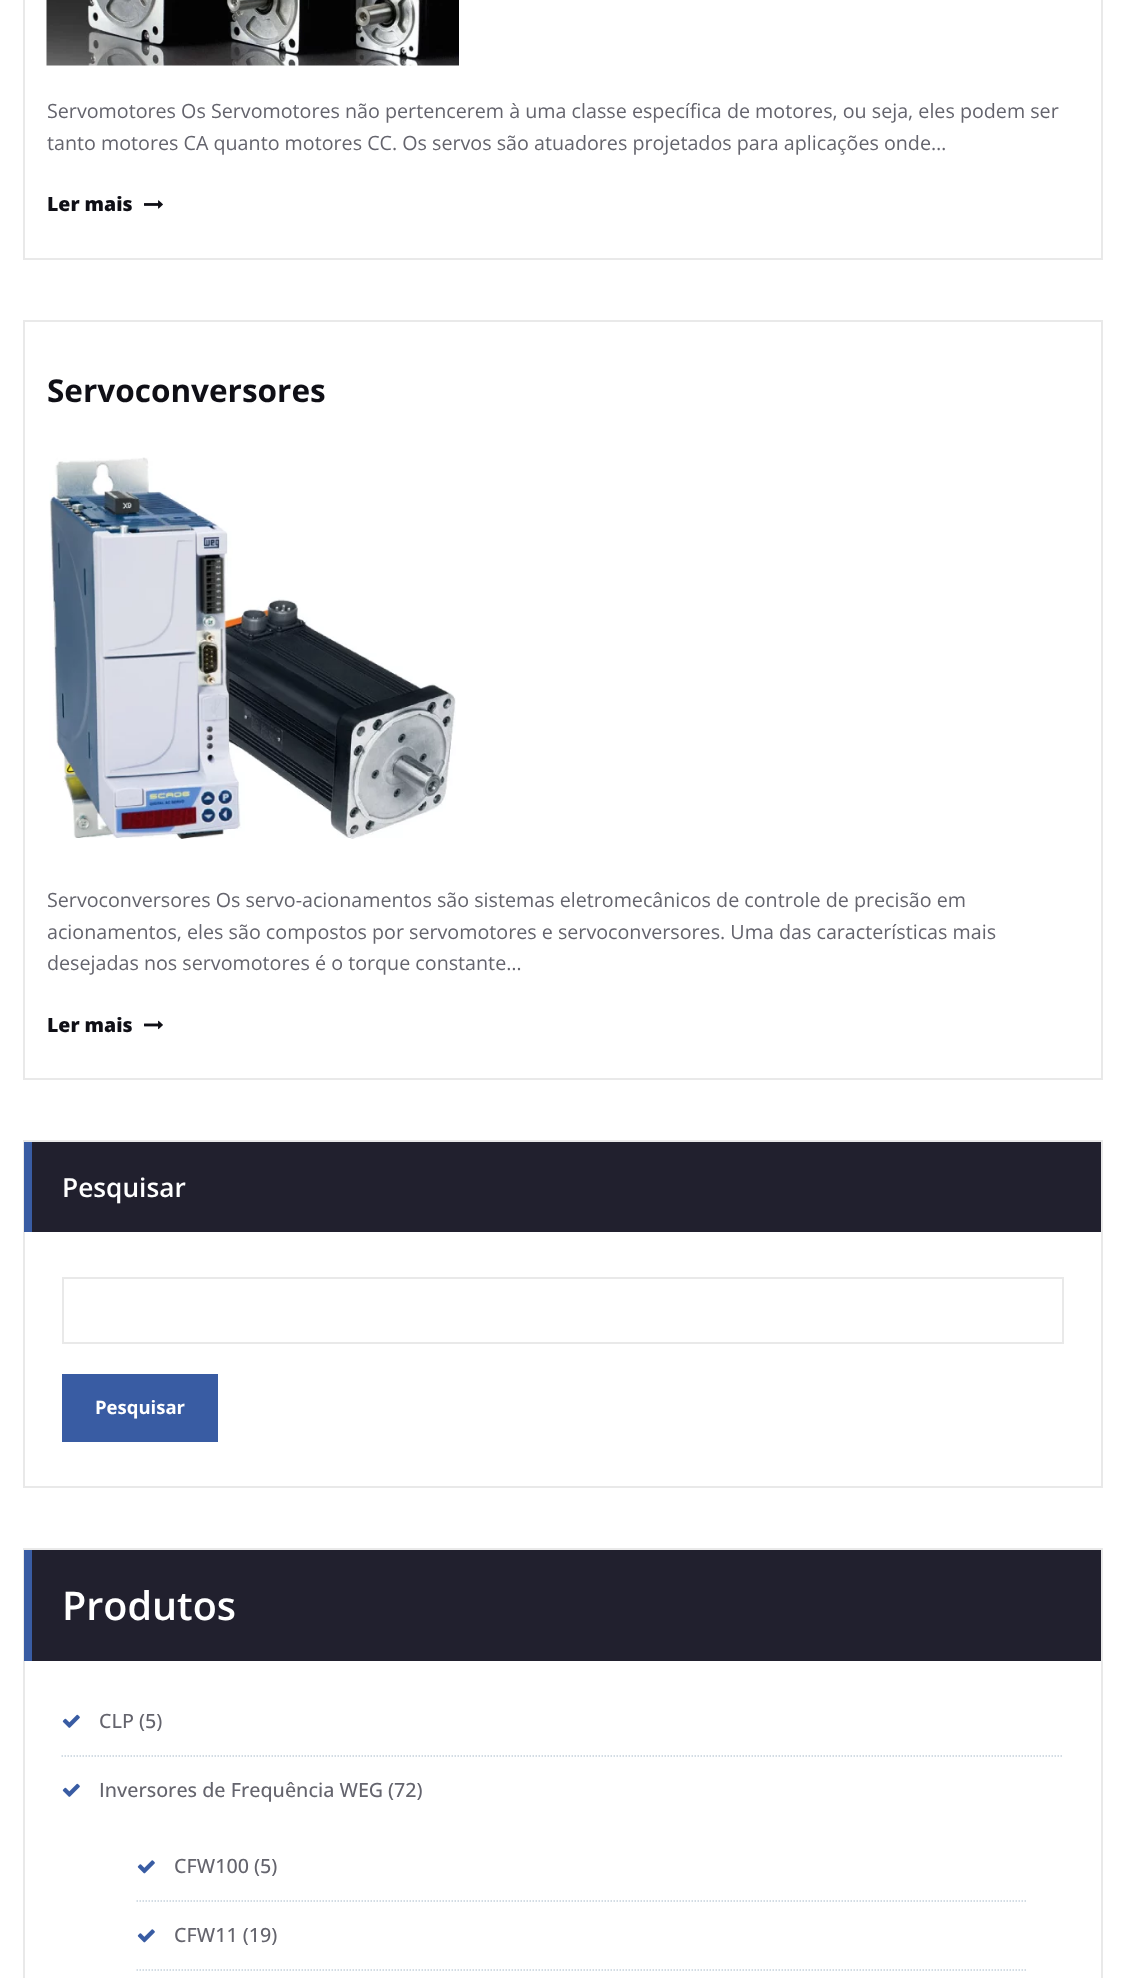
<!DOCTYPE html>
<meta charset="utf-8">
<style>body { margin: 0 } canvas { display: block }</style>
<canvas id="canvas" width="1125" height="1978"></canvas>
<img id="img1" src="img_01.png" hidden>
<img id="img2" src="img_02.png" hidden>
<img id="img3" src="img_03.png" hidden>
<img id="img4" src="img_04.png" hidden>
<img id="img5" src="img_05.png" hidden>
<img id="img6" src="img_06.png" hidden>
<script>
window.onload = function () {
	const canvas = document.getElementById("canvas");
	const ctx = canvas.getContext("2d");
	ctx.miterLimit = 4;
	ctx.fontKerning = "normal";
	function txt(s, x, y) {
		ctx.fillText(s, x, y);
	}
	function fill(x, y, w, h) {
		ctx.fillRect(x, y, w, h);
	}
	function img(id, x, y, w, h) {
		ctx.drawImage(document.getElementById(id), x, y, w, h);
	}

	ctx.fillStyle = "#FFFFFF";
	fill(0, 0, 1125, 1978);
	ctx.strokeStyle = "#E9E9E9";
	ctx.lineWidth = 2;
	ctx.strokeRect(24, -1, 1078, 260);
	img("img1", 46, 0, 413, 66);
	img("img2", 144, 200, 19, 9);
	ctx.strokeRect(24, 321, 1078, 758);
	img("img3", 49, 457, 407, 382);
	img("img4", 144, 1020, 19, 10);
	ctx.strokeRect(24, 1141, 1078, 346);
	ctx.fillStyle = "#21202E";
	fill(32, 1142, 1069, 90);
	ctx.fillStyle = "#395CA3";
	fill(24, 1142, 8, 90);
	ctx.strokeRect(63, 1278, 1000, 65);
	fill(62, 1374, 156, 68);
	ctx.strokeRect(24, 1549, 1078, 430);
	ctx.fillStyle = "#21202E";
	fill(32, 1550, 1069, 111);
	ctx.fillStyle = "#395CA3";
	fill(24, 1550, 8, 111);
	ctx.beginPath();
	ctx.moveTo(61.5, 1756);
	ctx.lineTo(1063.5, 1756);
	ctx.strokeStyle = "#C5D1DC";
	ctx.lineWidth = 1.5;
	ctx.setLineDash([1.5, 1.5]);
	ctx.stroke();
	img("img5", 62, 1714, 18, 14);
	img("img5", 62, 1783, 18, 14);
	ctx.beginPath();
	ctx.moveTo(136.5, 1901);
	ctx.lineTo(1026, 1901);
	ctx.stroke();
	img("img6", 137, 1860, 18, 14);
	ctx.beginPath();
	ctx.moveTo(136.5, 1970);
	ctx.lineTo(1026, 1970);
	ctx.stroke();
	img("img6", 137, 1929, 18, 14);
	ctx.font = "19.7px Open Sans";
	ctx.fillStyle = "#64646D";
	txt("Servomotores Os Servomotores não pertencerem à uma classe específica de motores, ou seja, eles podem ser", 47, 118);
	txt("tanto motores CA quanto motores CC. Os servos são atuadores projetados para aplicações onde…", 47, 150);
	ctx.font = "800 19.5px Open Sans";
	ctx.fillStyle = "#0F0F16";
	txt("Ler mais", 47, 211);
	ctx.font = "bold 31.5px Open Sans";
	txt("Servoconversores", 47, 402);
	ctx.font = "19.7px Open Sans";
	ctx.fillStyle = "#64646D";
	txt("Servoconversores Os servo-acionamentos são sistemas eletromecânicos de controle de precisão em", 47, 907);
	txt("acionamentos, eles são compostos por servomotores e servoconversores. Uma das características mais", 47, 939);
	txt("desejadas nos servomotores é o torque constante…", 47, 970);
	ctx.font = "800 19.5px Open Sans";
	ctx.fillStyle = "#0F0F16";
	txt("Ler mais", 47, 1032);
	ctx.font = "600 26.25px Open Sans";
	ctx.fillStyle = "#FFFFFF";
	txt("Pesquisar", 62, 1197);
	ctx.font = "bold 18.5px Open Sans";
	txt("Pesquisar", 95, 1414);
	ctx.font = "600 39.5px Open Sans";
	txt("Produtos", 62, 1620);
	ctx.font = "500 19.7px Open Sans";
	ctx.fillStyle = "#64646D";
	txt("CLP (5)", 99, 1728);
	txt("Inversores de Frequência WEG", 99, 1797);
	txt("(72)", 388, 1797);
	txt("CFW100 (5)", 174, 1873);
	txt("CFW11 (19)", 174, 1942);
};
</script>
